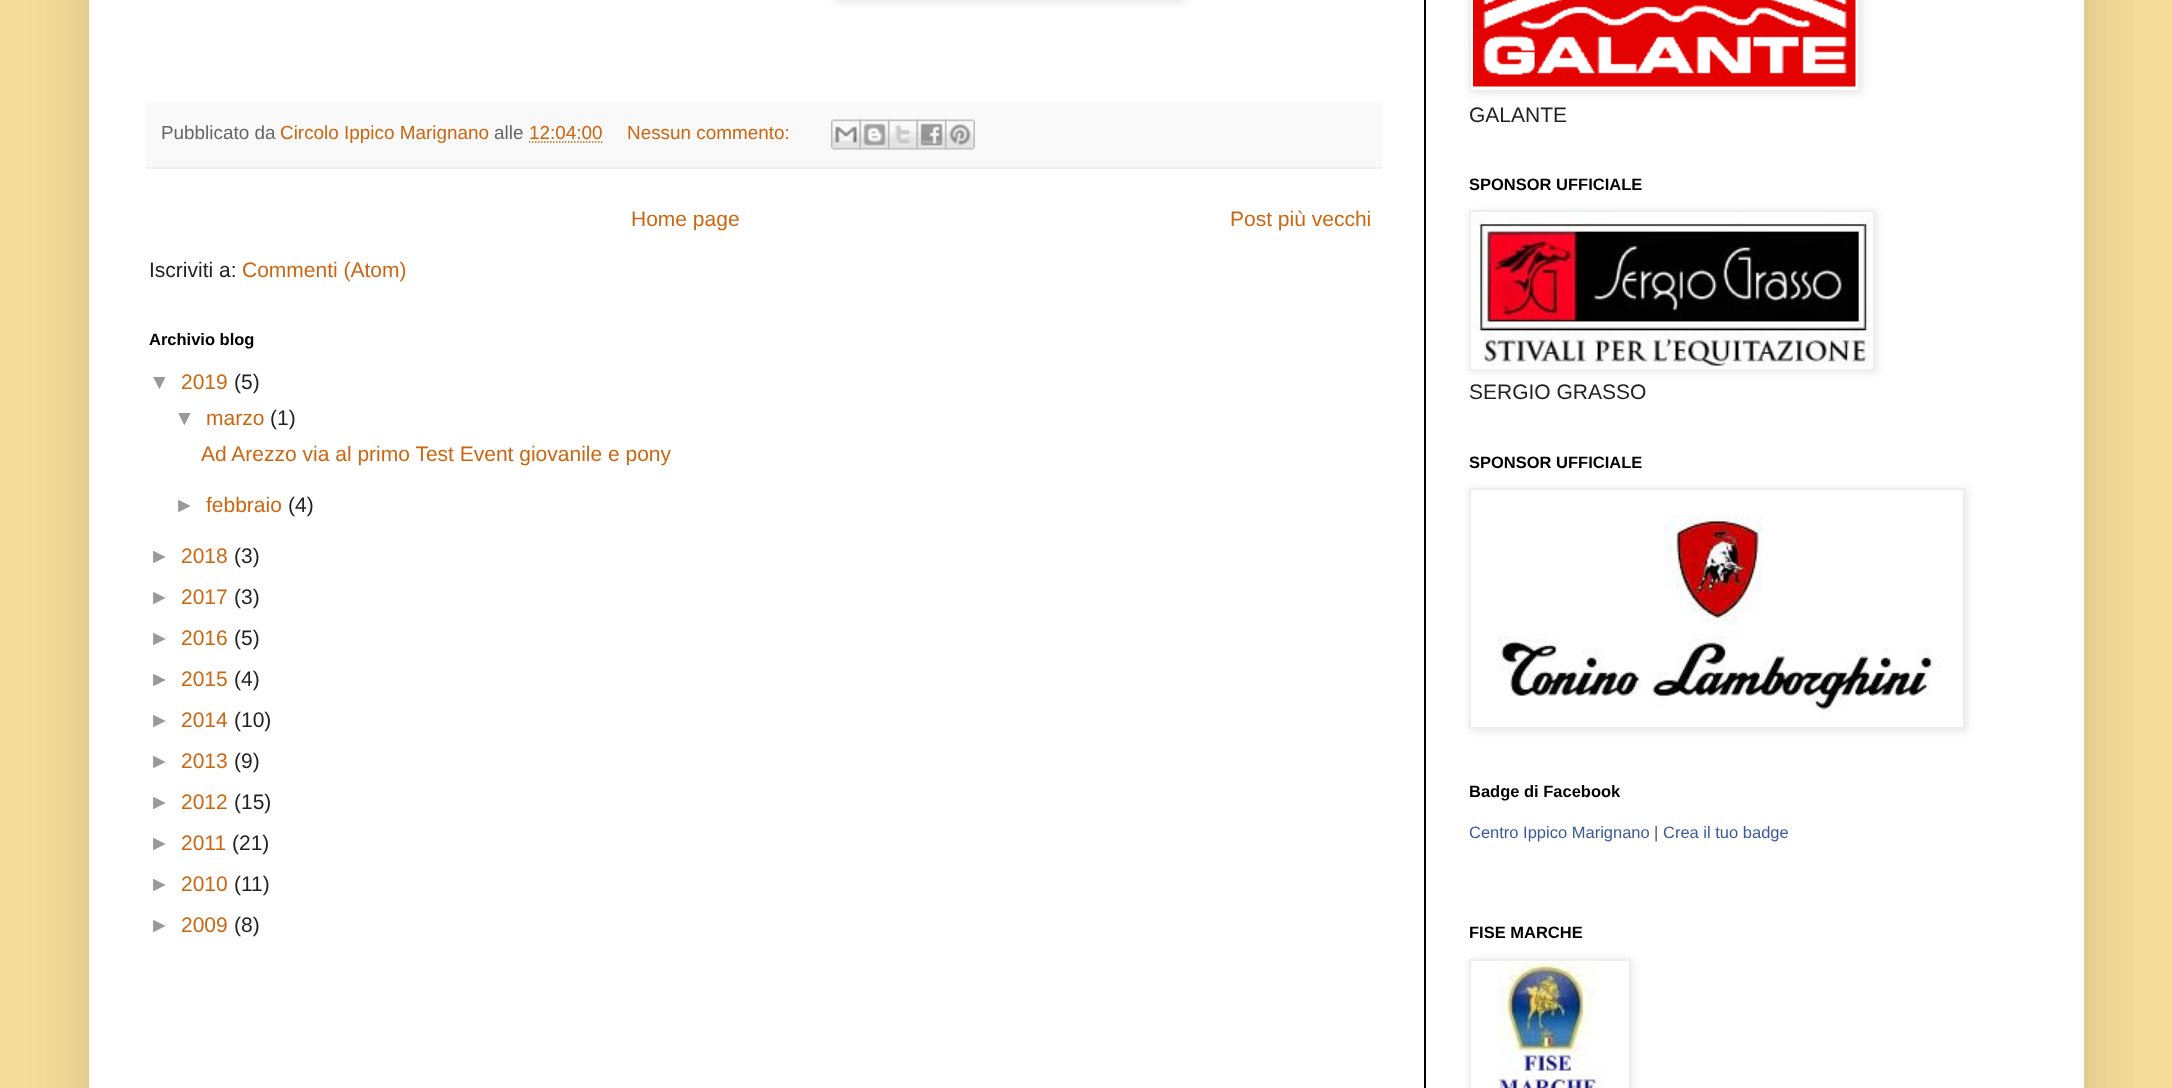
<!DOCTYPE html>
<meta charset="utf-8">
<style>body { margin: 0 } canvas { display: block }</style>
<canvas id="canvas" width="2172" height="1088"></canvas>
<img id="img1" src="img_01.png" hidden>
<img id="img2" src="img_02.png" hidden>
<img id="img3" src="img_03.png" hidden>
<img id="img4" src="img_04.png" hidden>
<img id="img5" src="img_05.png" hidden>
<img id="img6" src="img_06.png" hidden>
<img id="img7" src="img_07.png" hidden>
<img id="img8" src="img_08.png" hidden>
<img id="img9" src="img_09.png" hidden>
<script>
window.onload = function () {
	const canvas = document.getElementById("canvas");
	const ctx = canvas.getContext("2d");
	ctx.miterLimit = 4;
	ctx.fontKerning = "normal";
	function txt(s, x, y) {
		ctx.fillText(s, x, y);
	}
	function fill(x, y, w, h) {
		ctx.fillRect(x, y, w, h);
	}
	function img(id, x, y, w, h) {
		ctx.drawImage(document.getElementById(id), x, y, w, h);
	}

	ctx.fillStyle = "#F6DC99";
	fill(0, 0, 2172, 1088);
	ctx.fillStyle = "rgba(0, 0, 0, 0.15)";
	ctx.filter = "blur(30px)";
	ctx.beginPath();
	ctx.rect(89, -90, 1995, 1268);
	ctx.fill();
	ctx.filter = "none";
	ctx.fillStyle = "#FFFFFF";
	fill(89, 0, 1995, 1088);
	ctx.fillStyle = "#000000";
	fill(1424, 0, 2, 1088);
	ctx.fillStyle = "rgba(0, 0, 0, 0.1)";
	ctx.filter = "blur(4px)";
	ctx.beginPath();
	ctx.rect(836, -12, 349, 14);
	ctx.fill();
	ctx.filter = "none";
	ctx.fillStyle = "#F9F9F9";
	fill(146, 102, 1236, 65);
	ctx.fillStyle = "#EEEEEE";
	fill(146, 167, 1236, 2);
	ctx.beginPath();
	ctx.moveTo(529, 142);
	ctx.lineTo(602.5, 142);
	ctx.strokeStyle = "#CC6611";
	ctx.lineWidth = 1.5;
	ctx.setLineDash([1.5, 1.5]);
	ctx.stroke();
	img("img1", 831, 119, 30, 31);
	img("img2", 859, 119, 31, 31);
	img("img3", 888, 119, 30, 31);
	img("img4", 916, 119, 31, 31);
	img("img5", 945, 119, 30, 31);
	ctx.fillStyle = "rgba(0, 0, 0, 0.1)";
	ctx.filter = "blur(4px)";
	ctx.beginPath();
	ctx.rect(1470, -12, 392, 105);
	ctx.fill();
	ctx.filter = "none";
	ctx.fillStyle = "#FFFFFF";
	ctx.beginPath();
	ctx.rect(1470, -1, 389, 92);
	ctx.fill();
	ctx.strokeStyle = "#EEEEEE";
	ctx.lineWidth = 2;
	ctx.setLineDash([]);
	ctx.stroke();
	img("img6", 1473, 0, 383, 87);
	ctx.fillStyle = "rgba(0, 0, 0, 0.1)";
	ctx.filter = "blur(4px)";
	ctx.beginPath();
	ctx.rect(1470, 212, 407, 160);
	ctx.fill();
	ctx.filter = "none";
	ctx.fillStyle = "#FFFFFF";
	ctx.beginPath();
	ctx.rect(1470, 211, 404, 159);
	ctx.fill();
	ctx.stroke();
	img("img7", 1473, 214, 398, 152);
	ctx.save();
	ctx.beginPath();
	ctx.moveTo(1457, 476);
	ctx.lineTo(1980, 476);
	ctx.lineTo(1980, 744);
	ctx.lineTo(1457, 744);
	ctx.closePath();
	ctx.moveTo(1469, 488);
	ctx.lineTo(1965, 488);
	ctx.lineTo(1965, 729);
	ctx.lineTo(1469, 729);
	ctx.closePath();
	ctx.clip("evenodd");
	ctx.fillStyle = "rgba(0, 0, 0, 0.1)";
	ctx.filter = "blur(4px)";
	ctx.beginPath();
	ctx.rect(1470, 489, 497, 242);
	ctx.fill();
	ctx.filter = "none";
	ctx.restore();
	ctx.strokeRect(1470, 489, 494, 239);
	img("img8", 1497, 514, 444, 204);
	ctx.fillStyle = "rgba(0, 0, 0, 0.1)";
	ctx.filter = "blur(4px)";
	ctx.beginPath();
	ctx.rect(1470, 960, 162, 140);
	ctx.fill();
	ctx.filter = "none";
	ctx.fillStyle = "#FFFFFF";
	ctx.beginPath();
	ctx.rect(1470, 960, 160, 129);
	ctx.fill();
	ctx.stroke();
	img("img9", 1497, 962, 108, 126);
	ctx.font = "18.9px Liberation Sans";
	ctx.fillStyle = "#666666";
	txt("Pubblicato da", 161, 139);
	ctx.fillStyle = "#CC6611";
	txt("Circolo Ippico Marignano", 280, 139);
	ctx.fillStyle = "#666666";
	txt("alle", 494, 139);
	ctx.fillStyle = "#CC6611";
	txt("12:04:00", 529, 139);
	txt("Nessun commento:", 627, 139);
	ctx.font = "21px Liberation Sans";
	txt("Home page", 631, 226);
	txt("Post più vecchi", 1230, 226);
	ctx.fillStyle = "#222222";
	txt("Iscriviti a:", 149, 277);
	ctx.fillStyle = "#CC6611";
	txt("Commenti (Atom)", 242, 277);
	ctx.font = "bold 16.5px Liberation Sans";
	ctx.fillStyle = "#000000";
	txt("Archivio blog", 149, 345);
	ctx.font = "21px Liberation Sans";
	ctx.fillStyle = "#999999";
	txt("▼", 149, 389);
	ctx.fillStyle = "#CC6611";
	txt("2019", 181, 389);
	ctx.fillStyle = "#222222";
	txt("(5)", 234, 389);
	ctx.fillStyle = "#999999";
	txt("▼", 174, 425);
	ctx.fillStyle = "#CC6611";
	txt("marzo", 206, 425);
	ctx.fillStyle = "#222222";
	txt("(1)", 270, 425);
	ctx.fillStyle = "#CC6611";
	txt("Ad Arezzo via al primo Test Event giovanile e pony", 201, 461);
	ctx.fillStyle = "#999999";
	txt("►", 174, 512);
	ctx.fillStyle = "#CC6611";
	txt("febbraio", 206, 512);
	ctx.fillStyle = "#222222";
	txt("(4)", 288, 512);
	ctx.fillStyle = "#999999";
	txt("►", 149, 563);
	ctx.fillStyle = "#CC6611";
	txt("2018", 181, 563);
	ctx.fillStyle = "#222222";
	txt("(3)", 234, 563);
	ctx.fillStyle = "#999999";
	txt("►", 149, 604);
	ctx.fillStyle = "#CC6611";
	txt("2017", 181, 604);
	ctx.fillStyle = "#222222";
	txt("(3)", 234, 604);
	ctx.fillStyle = "#999999";
	txt("►", 149, 645);
	ctx.fillStyle = "#CC6611";
	txt("2016", 181, 645);
	ctx.fillStyle = "#222222";
	txt("(5)", 234, 645);
	ctx.fillStyle = "#999999";
	txt("►", 149, 686);
	ctx.fillStyle = "#CC6611";
	txt("2015", 181, 686);
	ctx.fillStyle = "#222222";
	txt("(4)", 234, 686);
	ctx.fillStyle = "#999999";
	txt("►", 149, 727);
	ctx.fillStyle = "#CC6611";
	txt("2014", 181, 727);
	ctx.fillStyle = "#222222";
	txt("(10)", 234, 727);
	ctx.fillStyle = "#999999";
	txt("►", 149, 768);
	ctx.fillStyle = "#CC6611";
	txt("2013", 181, 768);
	ctx.fillStyle = "#222222";
	txt("(9)", 234, 768);
	ctx.fillStyle = "#999999";
	txt("►", 149, 809);
	ctx.fillStyle = "#CC6611";
	txt("2012", 181, 809);
	ctx.fillStyle = "#222222";
	txt("(15)", 234, 809);
	ctx.fillStyle = "#999999";
	txt("►", 149, 850);
	ctx.fillStyle = "#CC6611";
	txt("2011", 181, 850);
	ctx.fillStyle = "#222222";
	txt("(21)", 232, 850);
	ctx.fillStyle = "#999999";
	txt("►", 149, 891);
	ctx.fillStyle = "#CC6611";
	txt("2010", 181, 891);
	ctx.fillStyle = "#222222";
	txt("(11)", 234, 891);
	ctx.fillStyle = "#999999";
	txt("►", 149, 932);
	ctx.fillStyle = "#CC6611";
	txt("2009", 181, 932);
	ctx.fillStyle = "#222222";
	txt("(8)", 234, 932);
	txt("GALANTE", 1469, 122);
	ctx.font = "bold 16.5px Liberation Sans";
	ctx.fillStyle = "#000000";
	txt("SPONSOR UFFICIALE", 1469, 190);
	ctx.font = "21px Liberation Sans";
	ctx.fillStyle = "#222222";
	txt("SERGIO GRASSO", 1469, 399);
	ctx.font = "bold 16.5px Liberation Sans";
	ctx.fillStyle = "#000000";
	txt("SPONSOR UFFICIALE", 1469, 468);
	txt("Badge di Facebook", 1469, 797);
	ctx.font = "16.5px Liberation Sans";
	ctx.fillStyle = "#3B5998";
	txt("Centro Ippico Marignano", 1469, 838);
	ctx.fillStyle = "#555555";
	txt("|", 1654, 838);
	ctx.fillStyle = "#3B5998";
	txt("Crea il tuo badge", 1663, 838);
	ctx.font = "bold 16.5px Liberation Sans";
	ctx.fillStyle = "#000000";
	txt("FISE MARCHE", 1469, 938);
};
</script>
